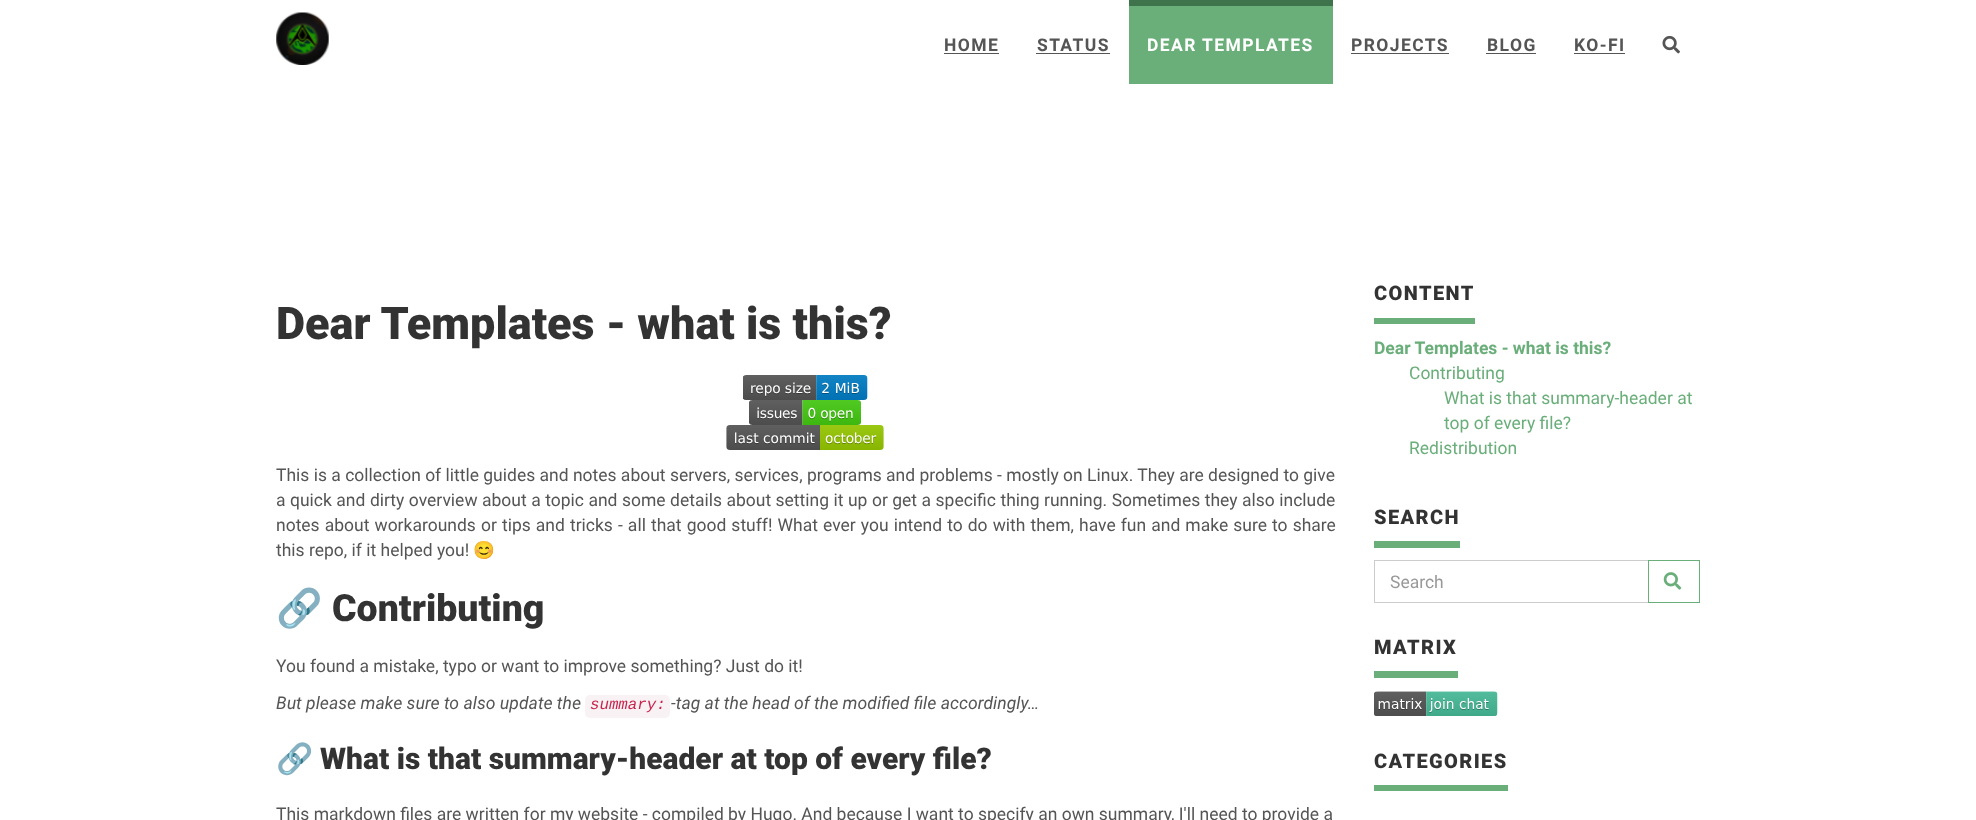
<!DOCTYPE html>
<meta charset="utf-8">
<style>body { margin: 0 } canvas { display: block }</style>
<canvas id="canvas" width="1976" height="820"></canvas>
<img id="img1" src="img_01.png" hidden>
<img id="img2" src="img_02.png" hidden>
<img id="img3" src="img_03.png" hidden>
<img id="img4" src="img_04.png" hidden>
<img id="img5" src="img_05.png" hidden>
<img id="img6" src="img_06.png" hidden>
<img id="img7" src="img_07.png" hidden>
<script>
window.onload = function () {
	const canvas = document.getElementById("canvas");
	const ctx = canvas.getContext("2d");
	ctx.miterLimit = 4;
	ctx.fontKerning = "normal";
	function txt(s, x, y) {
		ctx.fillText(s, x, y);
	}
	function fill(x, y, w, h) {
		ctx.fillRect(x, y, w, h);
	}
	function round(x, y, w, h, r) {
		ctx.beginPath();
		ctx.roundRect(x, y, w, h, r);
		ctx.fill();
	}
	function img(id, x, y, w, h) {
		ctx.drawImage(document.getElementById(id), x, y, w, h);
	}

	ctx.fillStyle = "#FFFFFF";
	fill(0, 0, 1976, 820);
	img("img1", 276, 12, 53, 53);
	ctx.fillStyle = "#555555";
	fill(944, 53, 55, 1);
	fill(1036, 53, 74, 1);
	ctx.fillStyle = "#6AAE7A";
	fill(1129, 6, 204, 78);
	ctx.fillStyle = "#3F734B";
	fill(1129, 0, 204, 6);
	ctx.fillStyle = "#555555";
	fill(1351, 53, 98, 1);
	fill(1486, 53, 50, 1);
	fill(1574, 53, 51, 1);
	img("img2", 1662, 35, 18, 19);
	img("img3", 743, 375, 125, 25);
	img("img4", 749, 400, 112, 25);
	img("img5", 726, 425, 158, 25);
	ctx.fillStyle = "#F9F2F4";
	round(585, 695, 85, 23, 5);
	ctx.fillStyle = "#6AAE7A";
	fill(1374, 318, 101, 6);
	fill(1374, 541, 86, 7);
	ctx.strokeStyle = "#CCCCCC";
	ctx.strokeRect(1374.5, 560.5, 274, 42);
	ctx.strokeStyle = "#6AAE7A";
	ctx.strokeRect(1648.5, 560.5, 51, 42);
	img("img6", 1663, 572, 19, 18);
	fill(1374, 671, 84, 7);
	img("img7", 1374, 691, 124, 25);
	fill(1374, 785, 134, 6);
	ctx.letterSpacing = "1.4px";
	ctx.font = "bold 17.5px Roboto";
	ctx.fillStyle = "#555555";
	txt("HOME", 944, 51);
	txt("STATUS", 1037, 51);
	ctx.fillStyle = "#FFFFFF";
	txt("DEAR TEMPLATES", 1147, 51);
	ctx.fillStyle = "#555555";
	txt("PROJECTS", 1351, 51);
	txt("BLOG", 1487, 51);
	txt("KO-FI", 1574, 51);
	ctx.letterSpacing = "0px";
	ctx.font = "900 45px Roboto";
	ctx.fillStyle = "#333333";
	txt("Dear Templates - what is this?", 276, 339);
	ctx.font = "17.5px Roboto";
	ctx.fillStyle = "#555555";
	txt("This is a collection of little guides and notes about servers, services, programs and problems - mostly on Linux. They are designed to give", 276, 481);
	ctx.wordSpacing = "0.15px";
	txt("a quick and dirty overview about a topic and some details about setting it up or get a specific thing running. Sometimes they also include", 276, 506);
	ctx.wordSpacing = "0.75px";
	txt("notes about workarounds or tips and tricks - all that good stuff! What ever you intend to do with them, have fun and make sure to share", 276, 531);
	ctx.wordSpacing = "0px";
	txt("this repo, if it helped you!", 276, 556);
	ctx.font = "17.5px Noto Color Emoji";
	txt("😊", 473, 556);
	ctx.font = "bold 37.5px Noto Color Emoji";
	ctx.fillStyle = "#6AAE7A";
	txt("🔗", 276, 621);
	ctx.font = "900 37.5px Roboto";
	ctx.fillStyle = "#333333";
	txt("Contributing", 332, 621);
	ctx.font = "17.5px Roboto";
	ctx.fillStyle = "#555555";
	txt("You found a mistake, typo or want to improve something? Just do it!", 276, 672);
	ctx.font = "italic 17.5px Roboto";
	txt("But please make sure to also update the", 276, 709);
	ctx.font = "italic 15.75px Liberation Mono";
	ctx.fillStyle = "#C7254E";
	txt("summary:", 590, 709);
	ctx.font = "italic 17.5px Roboto";
	ctx.fillStyle = "#555555";
	txt("-tag at the head of the modified file accordingly…", 671, 709);
	ctx.font = "bold 30px Noto Color Emoji";
	ctx.fillStyle = "#6AAE7A";
	txt("🔗", 276, 769);
	ctx.font = "900 30px Roboto";
	ctx.fillStyle = "#333333";
	txt("What is that summary-header at top of every file?", 320, 769);
	ctx.font = "17.5px Roboto";
	ctx.fillStyle = "#555555";
	txt("This markdown files are written for my website - compiled by Hugo. And because I want to specify an own summary, I'll need to provide a", 276, 820);
	ctx.letterSpacing = "1.4px";
	ctx.font = "900 20px Roboto";
	ctx.fillStyle = "#333333";
	txt("CONTENT", 1374, 300);
	ctx.letterSpacing = "0px";
	ctx.font = "bold 17.5px Roboto";
	ctx.fillStyle = "#6AAE7A";
	txt("Dear Templates - what is this?", 1374, 354);
	ctx.font = "17.5px Roboto";
	txt("Contributing", 1409, 379);
	txt("What is that summary-header at", 1444, 404);
	txt("top of every file?", 1444, 429);
	txt("Redistribution", 1409, 454);
	ctx.letterSpacing = "1.4px";
	ctx.font = "900 20px Roboto";
	ctx.fillStyle = "#333333";
	txt("SEARCH", 1374, 524);
	ctx.letterSpacing = "0px";
	ctx.font = "17.5px Roboto";
	ctx.fillStyle = "#999999";
	txt("Search", 1390, 588);
	ctx.letterSpacing = "1.4px";
	ctx.font = "900 20px Roboto";
	ctx.fillStyle = "#333333";
	txt("MATRIX", 1374, 654);
	txt("CATEGORIES", 1374, 768);
};
</script>
